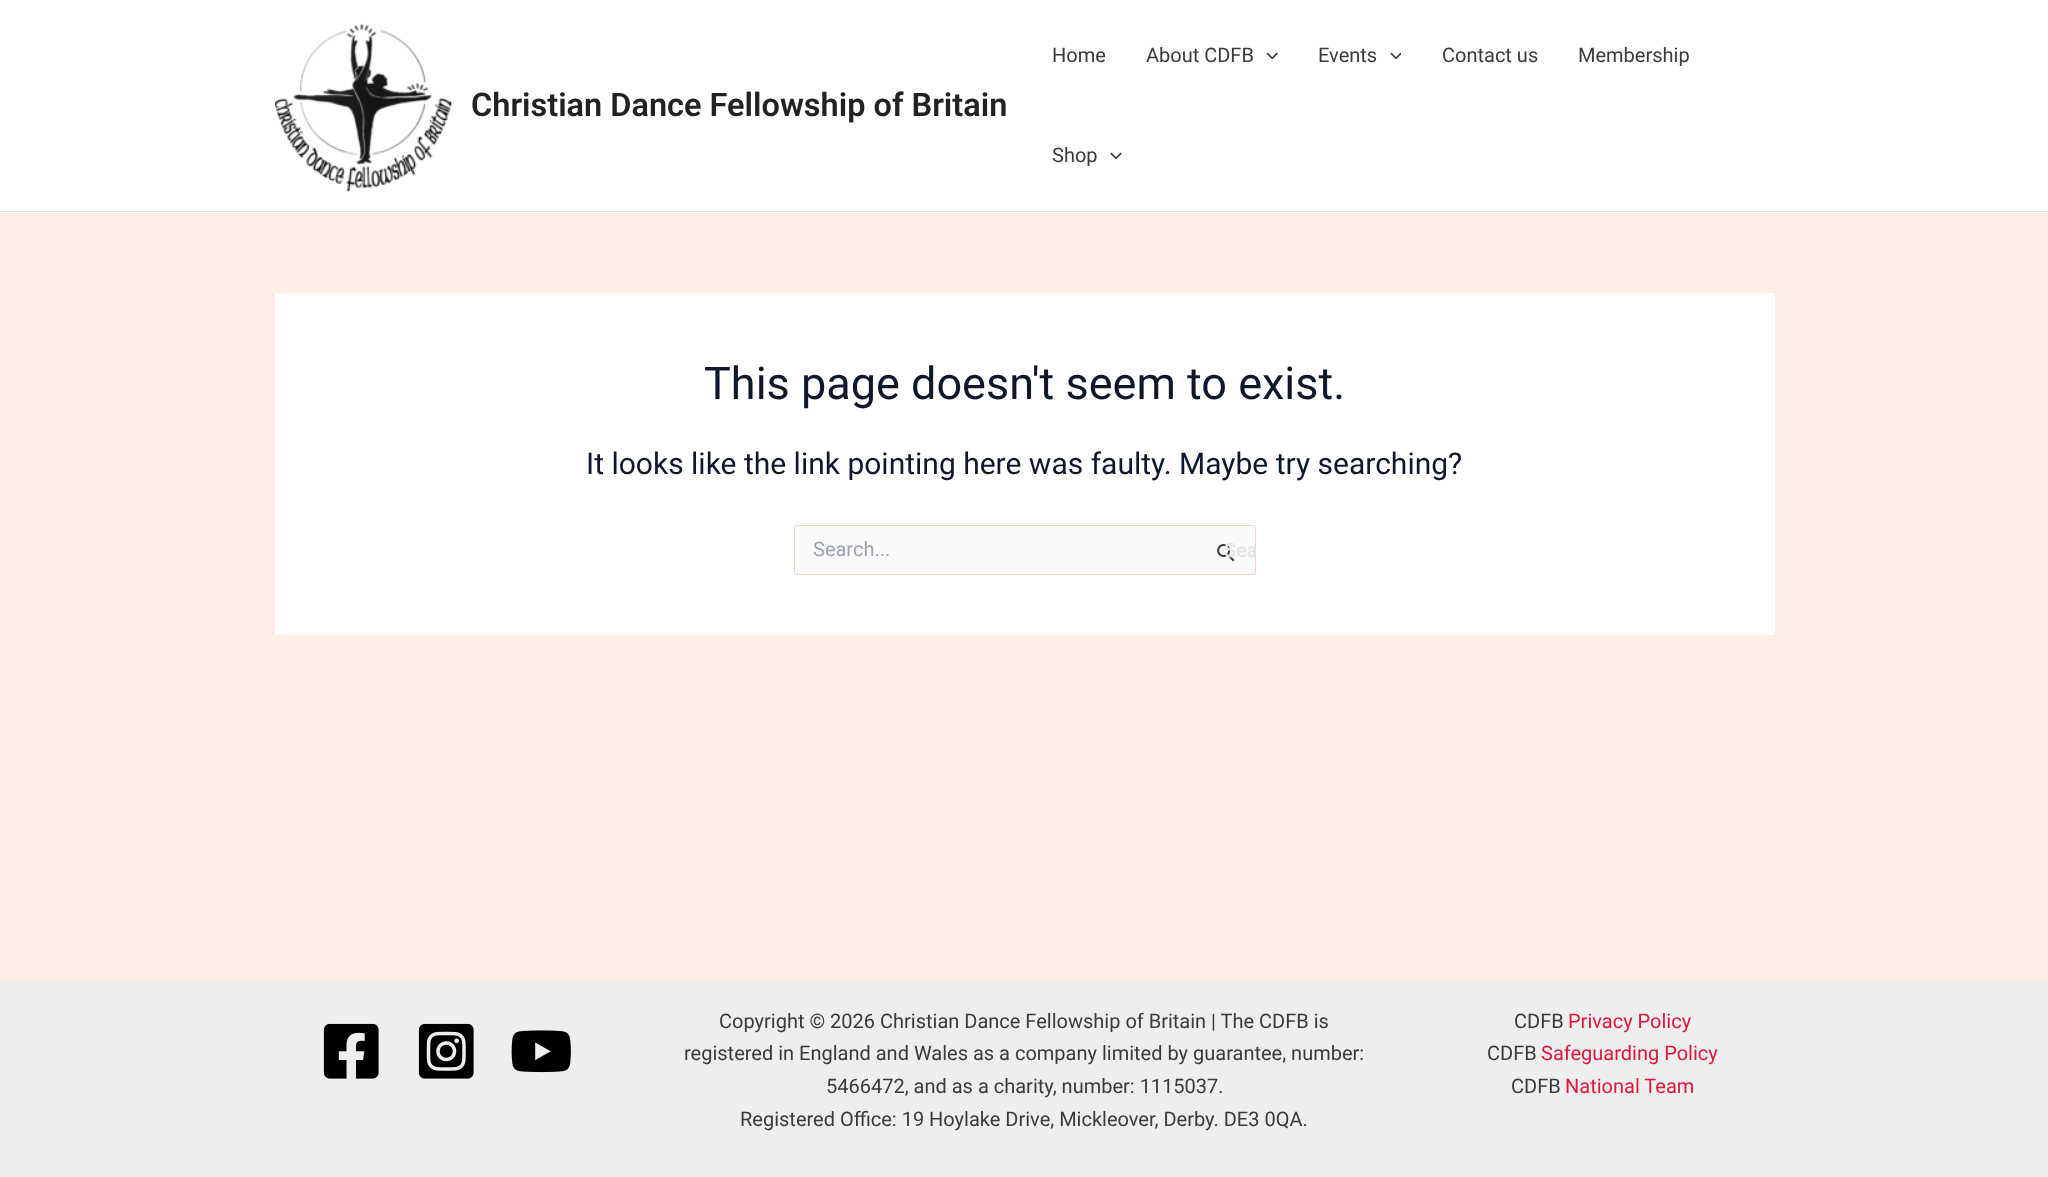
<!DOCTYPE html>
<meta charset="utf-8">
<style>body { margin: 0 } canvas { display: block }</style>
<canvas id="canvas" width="2048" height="1177"></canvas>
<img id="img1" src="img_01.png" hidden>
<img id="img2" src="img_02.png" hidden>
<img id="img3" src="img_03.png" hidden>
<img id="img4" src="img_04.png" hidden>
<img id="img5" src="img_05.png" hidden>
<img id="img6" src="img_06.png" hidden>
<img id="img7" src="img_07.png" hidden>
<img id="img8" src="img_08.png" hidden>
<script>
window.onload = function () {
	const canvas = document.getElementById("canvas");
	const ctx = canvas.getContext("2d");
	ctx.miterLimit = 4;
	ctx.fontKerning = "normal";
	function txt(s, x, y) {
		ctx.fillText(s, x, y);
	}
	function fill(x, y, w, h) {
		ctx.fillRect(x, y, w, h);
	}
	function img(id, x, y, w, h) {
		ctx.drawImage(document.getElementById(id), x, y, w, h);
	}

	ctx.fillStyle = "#FFEDE6";
	fill(0, 0, 2048, 1177);
	ctx.fillStyle = "#FFFFFF";
	fill(0, 0, 2048, 213);
	ctx.fillStyle = "#EAEAEA";
	fill(0, 211, 2048, 1);
	img("img1", 275, 23, 177, 169);
	img("img2", 1266, 52, 12, 8);
	img("img3", 1390, 52, 11, 8);
	img("img4", 1110, 152, 12, 8);
	ctx.fillStyle = "#FFFFFF";
	fill(275, 293, 1500, 342);
	ctx.fillStyle = "#FAFAFA";
	ctx.beginPath();
	ctx.roundRect(794.5, 525.5, 461, 49, 2);
	ctx.fill();
	ctx.strokeStyle = "#FFD1BF";
	ctx.stroke();
	img("img5", 1217, 544, 18, 18);
	ctx.fillStyle = "#EEEEEE";
	fill(0, 980, 2048, 197);
	img("img6", 323, 1023, 56, 56);
	img("img7", 418, 1023, 56, 56);
	img("img8", 511, 1030, 60, 43);
	ctx.font = "600 32.5px Roboto";
	ctx.fillStyle = "#222222";
	txt("Christian Dance Fellowship of Britain", 471, 116);
	ctx.font = "20px Roboto";
	ctx.fillStyle = "#3A3A3A";
	txt("Home", 1052, 62);
	txt("About CDFB", 1146, 62);
	txt("Events", 1318, 62);
	txt("Contact us", 1442, 62);
	txt("Membership", 1578, 62);
	txt("Shop", 1052, 162);
	ctx.font = "45px Roboto";
	ctx.fillStyle = "#0F172A";
	txt("This page doesn't seem to exist.", 704, 399);
	ctx.font = "30px Roboto";
	txt("It looks like the link pointing here was faulty. Maybe try searching?", 586, 474);
	ctx.font = "20px Roboto";
	ctx.fillStyle = "#9CA3AF";
	txt("Search...", 813, 556);
	ctx.save();
	ctx.beginPath();
	ctx.roundRect(1200, 525, 56, 53, 2.5);
	ctx.clip();
	ctx.font = "500 20px Roboto";
	ctx.fillStyle = "#E6E4E3";
	txt("Sea", 1224, 557);
	ctx.restore();
	ctx.fillStyle = "#3A3A3A";
	txt("Copyright © 2026 Christian Dance Fellowship of Britain | The CDFB is", 719, 1028);
	txt("registered in England and Wales as a company limited by guarantee, number:", 684, 1060);
	txt("5466472, and as a charity, number: 1115037.", 826, 1093);
	txt("Registered Office: 19 Hoylake Drive, Mickleover, Derby. DE3 0QA.", 740, 1126);
	txt("CDFB", 1514, 1028);
	ctx.fillStyle = "#DD183B";
	txt("Privacy Policy", 1568, 1028);
	ctx.fillStyle = "#3A3A3A";
	txt("CDFB", 1487, 1060);
	ctx.fillStyle = "#DD183B";
	txt("Safeguarding Policy", 1541, 1060);
	ctx.fillStyle = "#3A3A3A";
	txt("CDFB", 1511, 1093);
	ctx.fillStyle = "#DD183B";
	txt("National Team", 1565, 1093);
};
</script>
